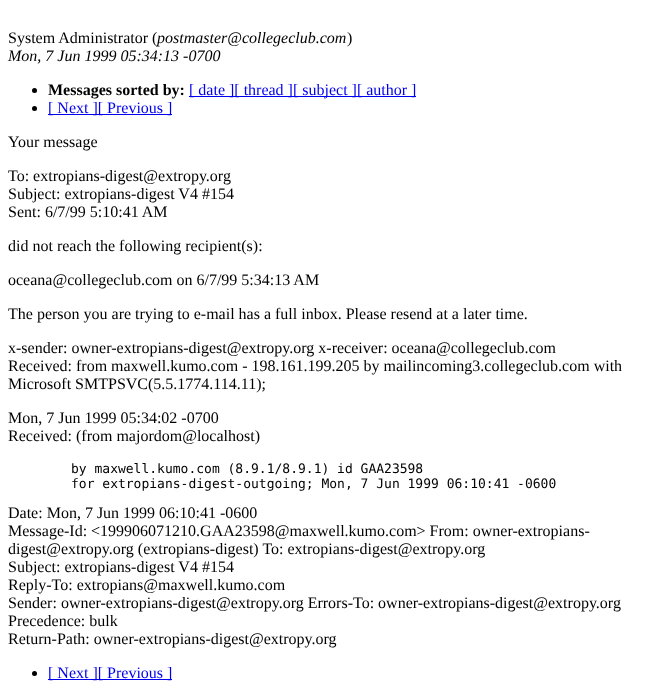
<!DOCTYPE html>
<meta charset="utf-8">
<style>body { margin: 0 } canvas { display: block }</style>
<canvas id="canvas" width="659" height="698"></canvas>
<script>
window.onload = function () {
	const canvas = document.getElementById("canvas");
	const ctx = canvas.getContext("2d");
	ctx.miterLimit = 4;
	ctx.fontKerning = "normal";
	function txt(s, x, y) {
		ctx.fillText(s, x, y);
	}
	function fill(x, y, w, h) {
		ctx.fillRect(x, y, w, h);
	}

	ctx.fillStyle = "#FFFFFF";
	fill(0, 0, 659, 698);
	ctx.fillStyle = "#000000";
	ctx.beginPath();
	ctx.arc(34.5, 90.5, 2.5, 0, Math.PI * 2);
	ctx.fill();
	ctx.fillStyle = "#0000EE";
	fill(189, 96, 227, 1);
	ctx.fillStyle = "#000000";
	ctx.beginPath();
	ctx.arc(34.5, 108.5, 2.5, 0, Math.PI * 2);
	ctx.fill();
	ctx.fillStyle = "#0000EE";
	fill(48, 114, 124, 1);
	ctx.fillStyle = "#000000";
	ctx.beginPath();
	ctx.arc(34.5, 673.5, 2.5, 0, Math.PI * 2);
	ctx.fill();
	ctx.fillStyle = "#0000EE";
	fill(48, 679, 124, 1);
	ctx.font = "16px Liberation Serif";
	ctx.fillStyle = "#000000";
	txt("System Administrator (", 8, 43);
	ctx.font = "italic 16px Liberation Serif";
	txt("postmaster@collegeclub.com", 157, 43);
	ctx.font = "16px Liberation Serif";
	txt(")", 347, 43);
	ctx.font = "italic 16px Liberation Serif";
	txt("Mon, 7 Jun 1999 05:34:13 -0700", 8, 61);
	ctx.font = "bold 16px Liberation Serif";
	txt("Messages sorted by:", 48, 95);
	ctx.font = "16px Liberation Serif";
	ctx.fillStyle = "#0000EE";
	txt("[ date ][ thread ][ subject ][ author ]", 189, 95);
	txt("[ Next ][ Previous ]", 48, 113);
	ctx.fillStyle = "#000000";
	txt("Your message", 8, 147);
	txt("To: extropians-digest@extropy.org", 8, 181);
	txt("Subject: extropians-digest V4 #154", 8, 199);
	txt("Sent: 6/7/99 5:10:41 AM", 8, 217);
	txt("did not reach the following recipient(s):", 8, 251);
	txt("oceana@collegeclub.com on 6/7/99 5:34:13 AM", 8, 285);
	txt("The person you are trying to e-mail has a full inbox. Please resend at a later time.", 8, 319);
	txt("x-sender: owner-extropians-digest@extropy.org x-receiver: oceana@collegeclub.com", 8, 353);
	txt("Received: from maxwell.kumo.com - 198.161.199.205 by mailincoming3.collegeclub.com with", 8, 371);
	txt("Microsoft SMTPSVC(5.5.1774.114.11);", 8, 389);
	txt("Mon, 7 Jun 1999 05:34:02 -0700", 8, 423);
	txt("Received: (from majordom@localhost)", 8, 441);
	ctx.font = "13px DejaVu Sans Mono";
	txt("by maxwell.kumo.com (8.9.1/8.9.1) id GAA23598", 71, 473);
	txt("for extropians-digest-outgoing; Mon, 7 Jun 1999 06:10:41 -0600", 71, 488);
	ctx.font = "16px Liberation Serif";
	txt("Date: Mon, 7 Jun 1999 06:10:41 -0600", 8, 518);
	txt("Message-Id: <199906071210.GAA23598@maxwell.kumo.com> From: owner-extropians-", 8, 536);
	txt("digest@extropy.org (extropians-digest) To: extropians-digest@extropy.org", 8, 554);
	txt("Subject: extropians-digest V4 #154", 8, 572);
	txt("Reply-To: extropians@maxwell.kumo.com", 8, 590);
	txt("Sender: owner-extropians-digest@extropy.org Errors-To: owner-extropians-digest@extropy.org", 8, 608);
	txt("Precedence: bulk", 8, 626);
	txt("Return-Path: owner-extropians-digest@extropy.org", 8, 644);
	ctx.fillStyle = "#0000EE";
	txt("[ Next ][ Previous ]", 48, 678);
};
</script>
